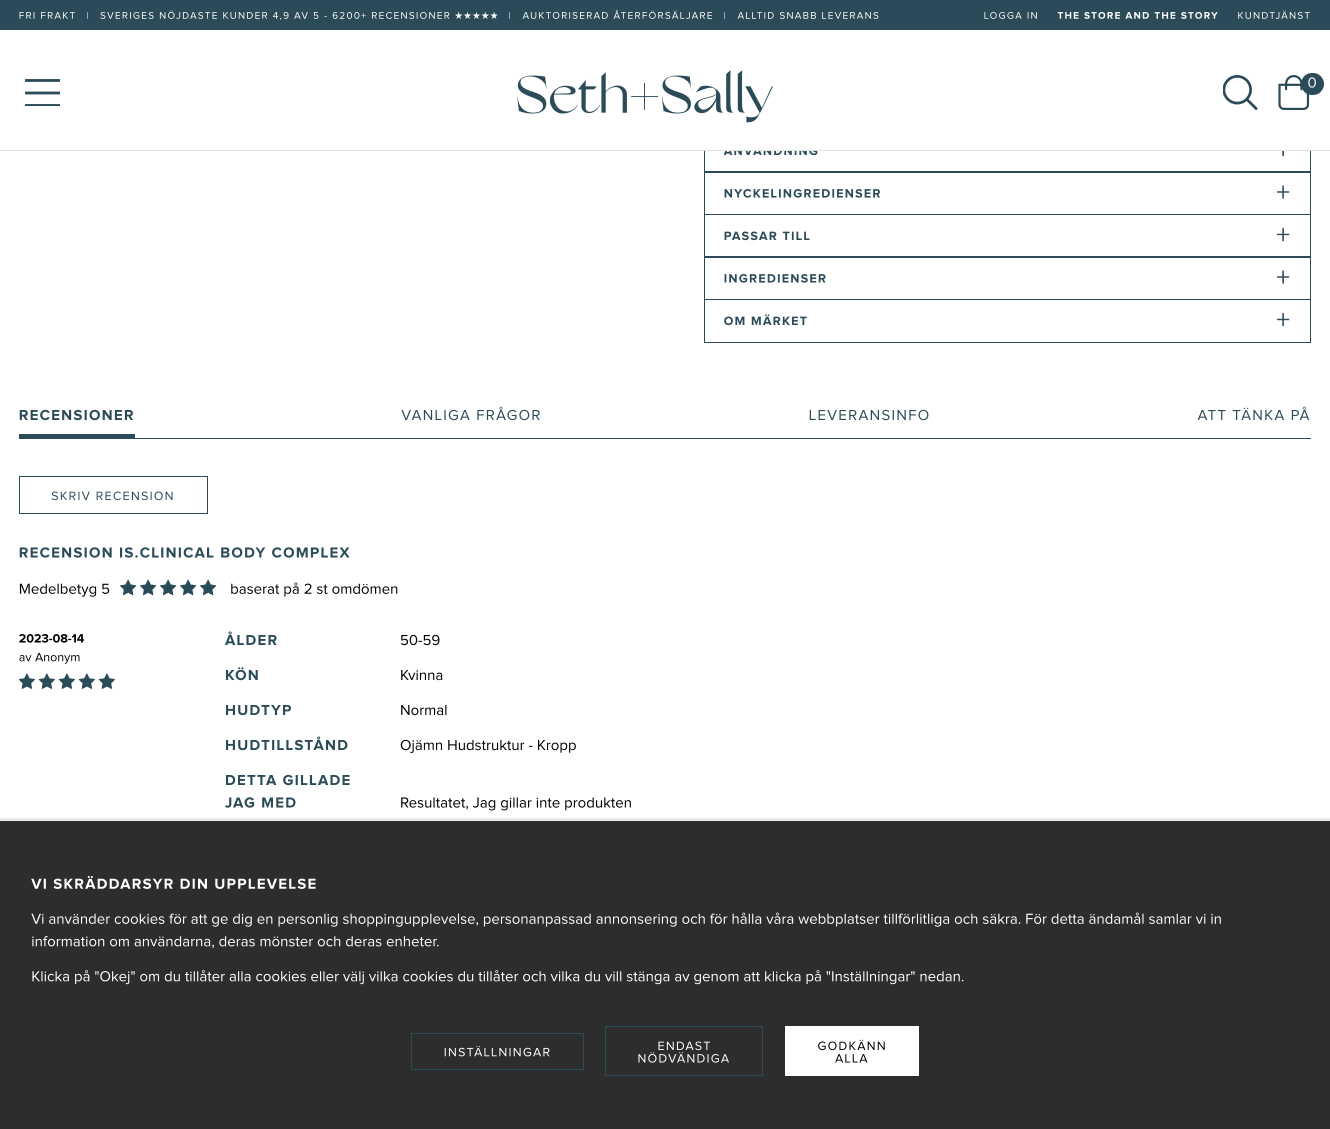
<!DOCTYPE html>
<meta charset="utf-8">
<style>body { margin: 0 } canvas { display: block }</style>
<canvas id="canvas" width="1330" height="1129"></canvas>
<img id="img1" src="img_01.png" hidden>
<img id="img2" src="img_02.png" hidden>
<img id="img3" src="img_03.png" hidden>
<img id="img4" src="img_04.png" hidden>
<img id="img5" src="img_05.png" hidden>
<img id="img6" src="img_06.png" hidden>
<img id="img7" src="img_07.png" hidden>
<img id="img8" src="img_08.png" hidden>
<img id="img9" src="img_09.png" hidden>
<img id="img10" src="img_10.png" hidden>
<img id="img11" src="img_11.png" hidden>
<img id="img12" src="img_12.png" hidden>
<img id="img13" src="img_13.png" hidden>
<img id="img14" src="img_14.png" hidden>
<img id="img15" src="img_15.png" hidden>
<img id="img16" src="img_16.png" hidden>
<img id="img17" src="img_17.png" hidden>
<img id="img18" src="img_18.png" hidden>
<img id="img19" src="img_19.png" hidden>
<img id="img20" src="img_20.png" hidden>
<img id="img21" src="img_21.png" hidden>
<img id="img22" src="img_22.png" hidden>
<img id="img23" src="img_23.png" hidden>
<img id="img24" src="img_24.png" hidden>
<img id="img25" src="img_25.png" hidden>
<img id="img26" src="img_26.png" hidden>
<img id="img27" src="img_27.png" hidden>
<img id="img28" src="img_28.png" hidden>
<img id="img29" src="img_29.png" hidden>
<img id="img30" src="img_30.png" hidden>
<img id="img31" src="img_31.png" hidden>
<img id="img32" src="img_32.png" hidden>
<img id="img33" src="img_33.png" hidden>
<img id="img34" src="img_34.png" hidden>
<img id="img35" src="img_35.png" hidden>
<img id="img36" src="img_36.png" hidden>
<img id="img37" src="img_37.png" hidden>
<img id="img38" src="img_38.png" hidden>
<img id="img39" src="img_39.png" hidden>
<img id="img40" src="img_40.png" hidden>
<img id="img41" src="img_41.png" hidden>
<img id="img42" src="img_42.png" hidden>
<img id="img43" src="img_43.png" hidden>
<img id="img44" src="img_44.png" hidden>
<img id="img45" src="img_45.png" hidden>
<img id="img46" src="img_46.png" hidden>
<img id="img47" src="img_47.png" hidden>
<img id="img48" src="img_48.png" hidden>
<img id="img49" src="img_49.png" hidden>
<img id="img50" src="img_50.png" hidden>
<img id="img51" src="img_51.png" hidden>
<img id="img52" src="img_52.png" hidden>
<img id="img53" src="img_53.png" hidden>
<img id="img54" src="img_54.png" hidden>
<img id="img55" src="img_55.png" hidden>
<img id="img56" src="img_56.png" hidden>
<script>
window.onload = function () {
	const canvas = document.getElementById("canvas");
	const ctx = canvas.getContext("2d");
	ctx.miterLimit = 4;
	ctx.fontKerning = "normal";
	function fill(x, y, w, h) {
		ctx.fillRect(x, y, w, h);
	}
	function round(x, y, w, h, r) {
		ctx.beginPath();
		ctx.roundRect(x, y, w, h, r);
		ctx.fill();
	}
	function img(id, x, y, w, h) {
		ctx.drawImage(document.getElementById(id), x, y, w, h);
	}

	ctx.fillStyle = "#FFFFFF";
	fill(0, 0, 1330, 1129);
	ctx.fillStyle = "#2B4B59";
	fill(0, 0, 1330, 30);
	img("img1", 19, 12, 56, 7);
	ctx.fillStyle = "#FFFFFF";
	ctx.beginPath();
	ctx.moveTo(87.5, 19);
	ctx.lineTo(87.5, 12);
	ctx.lineTo(87, 12);
	ctx.lineTo(87, 19);
	ctx.closePath();
	ctx.fill();
	img("img2", 100, 10, 398, 10);
	ctx.beginPath();
	ctx.moveTo(510, 19);
	ctx.lineTo(510, 12);
	ctx.lineTo(509.5, 12);
	ctx.lineTo(509.5, 19);
	ctx.closePath();
	ctx.fill();
	img("img3", 522, 9, 190, 10);
	ctx.beginPath();
	ctx.moveTo(725, 19);
	ctx.lineTo(725, 12);
	ctx.lineTo(724.5, 12);
	ctx.lineTo(724.5, 19);
	ctx.closePath();
	ctx.fill();
	img("img4", 737, 12, 142, 7);
	img("img5", 984, 12, 53, 7);
	img("img6", 1057, 12, 161, 7);
	img("img7", 1238, 10, 72, 9);
	ctx.strokeStyle = "#2B4B59";
	ctx.strokeRect(704.5, 129.5, 606, 43);
	fill(704, 129, 607, 21);
	ctx.fillStyle = "#E2E2E2";
	fill(0, 150, 1330, 1);
	img("img8", 25, 79, 35, 27);
	img("img9", 517, 70, 256, 53);
	img("img10", 1223, 75, 35, 35);
	img("img11", 1278, 75, 32, 35);
	ctx.fillStyle = "#2B4B59";
	round(1301, 73, 23, 22, 11);
	img("img12", 1308, 77, 8, 11);
	img("img13", 723, 151, 95, 5);
	img("img14", 1282, 151, 2, 6);
	ctx.strokeRect(704.5, 171.5, 606, 43);
	img("img15", 724, 189, 156, 9);
	img("img16", 1277, 185, 13, 14);
	ctx.strokeRect(704.5, 214.5, 606, 43);
	img("img17", 724, 231, 86, 10);
	img("img18", 1277, 228, 13, 14);
	ctx.strokeRect(704.5, 256.5, 606, 43);
	img("img19", 724, 274, 102, 9);
	img("img16", 1277, 270, 13, 14);
	ctx.strokeRect(704.5, 299.5, 606, 43);
	img("img20", 724, 314, 83, 12);
	img("img18", 1277, 313, 13, 14);
	fill(19, 438, 1292, 1);
	fill(19, 434, 116, 4);
	img("img21", 19, 409, 114, 12);
	img("img22", 401, 406, 139, 15);
	img("img23", 809, 409, 120, 12);
	img("img24", 1197, 406, 113, 14);
	ctx.strokeRect(19.5, 476.5, 188, 37);
	img("img25", 51, 491, 122, 10);
	img("img26", 19, 547, 331, 11);
	img("img27", 19, 583, 91, 14);
	img("img28", 120, 579, 17, 17);
	img("img28", 140, 579, 17, 17);
	img("img28", 160, 579, 17, 17);
	img("img28", 180, 579, 17, 17);
	img("img28", 200, 579, 17, 17);
	img("img29", 231, 582, 68, 15);
	img("img30", 304, 583, 8, 11);
	img("img31", 317, 583, 81, 11);
	img("img32", 19, 634, 65, 9);
	img("img33", 19, 655, 13, 7);
	img("img34", 35, 652, 45, 12);
	img("img35", 19, 673, 16, 16);
	img("img36", 38, 673, 17, 16);
	img("img36", 58, 673, 17, 16);
	img("img36", 78, 673, 17, 16);
	img("img36", 98, 673, 17, 16);
	img("img37", 225, 631, 52, 14);
	img("img38", 401, 634, 39, 12);
	img("img39", 226, 667, 32, 14);
	img("img40", 401, 670, 42, 11);
	img("img41", 226, 705, 66, 11);
	img("img42", 401, 705, 46, 11);
	img("img43", 226, 736, 122, 15);
	img("img44", 400, 739, 176, 14);
	img("img45", 226, 774, 124, 12);
	img("img46", 225, 797, 71, 11);
	img("img47", 401, 797, 230, 14);
	ctx.fillStyle = "#2D2D2D";
	fill(0, 821, 1330, 308);
	ctx.fillStyle = "#E9E9E9";
	fill(0, 818, 1330, 3);
	img("img48", 31, 876, 285, 13);
	img("img49", 31, 912, 1190, 15);
	img("img50", 32, 936, 407, 13);
	img("img51", 32, 970, 932, 15);
	ctx.strokeRect(411.5, 1033.5, 172, 36);
	img("img52", 444, 1046, 106, 11);
	ctx.strokeRect(605.5, 1026.5, 157, 49);
	img("img53", 658, 1041, 52, 10);
	img("img54", 638, 1052, 91, 11);
	ctx.fillStyle = "#FFFFFF";
	fill(785, 1026, 134, 50);
	img("img55", 818, 1039, 67, 12);
	img("img56", 835, 1054, 33, 9);
};
</script>
